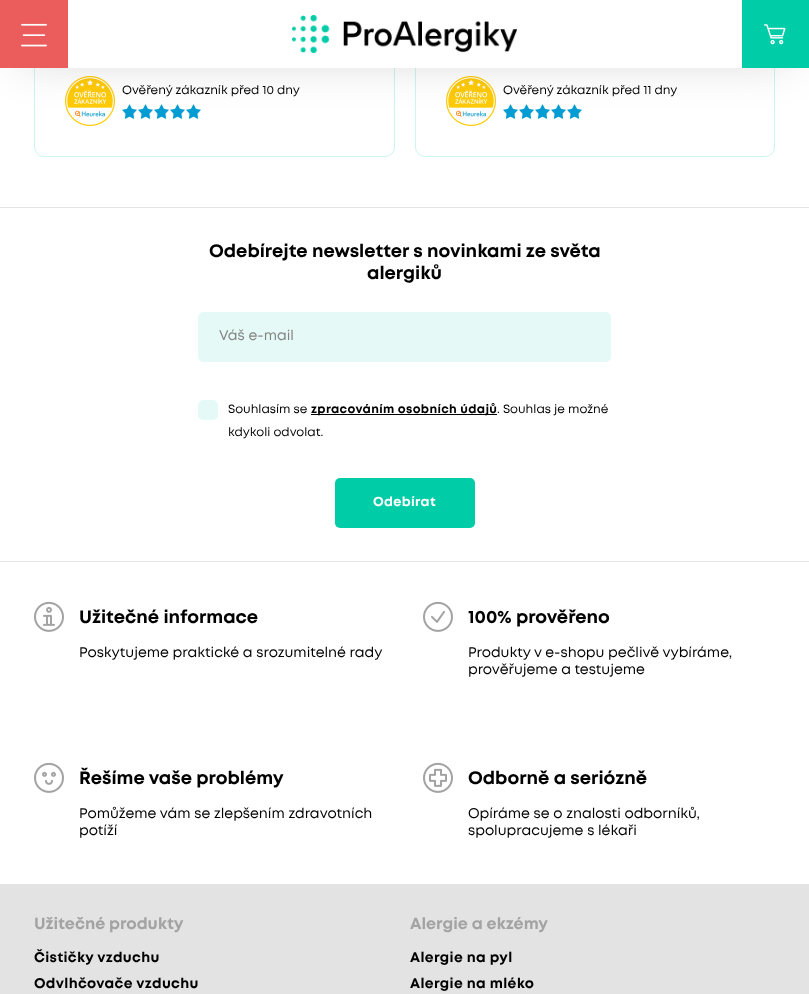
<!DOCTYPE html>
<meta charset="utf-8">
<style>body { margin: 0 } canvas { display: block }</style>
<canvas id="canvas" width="809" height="994"></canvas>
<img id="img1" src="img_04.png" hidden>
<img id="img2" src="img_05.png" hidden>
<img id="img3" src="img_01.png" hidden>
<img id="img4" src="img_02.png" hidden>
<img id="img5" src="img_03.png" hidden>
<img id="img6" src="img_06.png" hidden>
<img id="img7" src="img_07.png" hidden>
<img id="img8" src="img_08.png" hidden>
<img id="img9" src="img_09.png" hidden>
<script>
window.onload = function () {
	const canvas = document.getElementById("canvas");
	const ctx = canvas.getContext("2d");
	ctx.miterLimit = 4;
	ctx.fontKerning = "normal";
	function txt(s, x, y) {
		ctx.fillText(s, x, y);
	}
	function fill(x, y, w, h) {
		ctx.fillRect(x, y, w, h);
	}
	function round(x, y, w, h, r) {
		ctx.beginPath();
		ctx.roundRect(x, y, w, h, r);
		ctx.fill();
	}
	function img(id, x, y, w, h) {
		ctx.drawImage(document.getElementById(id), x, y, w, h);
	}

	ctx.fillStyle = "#FFFFFF";
	fill(0, 0, 809, 994);
	ctx.beginPath();
	ctx.roundRect(34.5, -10.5, 360, 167, 9.5);
	ctx.strokeStyle = "#CCF5ED";
	ctx.stroke();
	img("img1", 65, 76, 50, 50);
	img("img2", 122, 104, 79, 15);
	ctx.beginPath();
	ctx.roundRect(415.5, -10.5, 359, 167, 9.5);
	ctx.stroke();
	img("img1", 446, 76, 50, 50);
	img("img2", 503, 104, 79, 15);
	ctx.fillStyle = "rgba(0, 0, 0, 0.21)";
	ctx.filter = "blur(23.5px)";
	ctx.beginPath();
	ctx.rect(20, 30, 769, 28);
	ctx.fill();
	ctx.filter = "none";
	ctx.fillStyle = "#FFFFFF";
	fill(68, 0, 674, 68);
	ctx.fillStyle = "#EB5C5C";
	fill(0, 0, 68, 68);
	img("img3", 21, 23, 26, 24);
	img("img4", 292, 15, 225, 38);
	ctx.fillStyle = "#00CCA7";
	fill(742, 0, 67, 68);
	img("img5", 764, 24, 22, 21);
	ctx.fillStyle = "#E3E3E3";
	fill(0, 207, 809, 1);
	fill(0, 561, 809, 1);
	ctx.fillStyle = "#E5FAF6";
	ctx.beginPath();
	ctx.roundRect(198.5, 312.5, 412, 49, 4.5);
	ctx.fill();
	ctx.strokeStyle = "#E5FAF6";
	ctx.stroke();
	ctx.beginPath();
	ctx.roundRect(198.5, 400.5, 19, 19, 4.5);
	ctx.fill();
	ctx.stroke();
	ctx.fillStyle = "#000000";
	fill(311, 414, 186, 1);
	ctx.fillStyle = "#00CCA7";
	round(335, 478, 140, 50, 5);
	img("img6", 34, 601, 30, 31);
	img("img7", 423, 601, 30, 31);
	img("img8", 34, 762, 30, 31);
	img("img9", 423, 762, 30, 31);
	ctx.fillStyle = "#E3E3E3";
	fill(0, 884, 809, 110);
	ctx.font = "12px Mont";
	ctx.fillStyle = "#000000";
	txt("Ověřený zákazník před 10 dny", 122, 94);
	txt("Ověřený zákazník před 11 dny", 503, 94);
	ctx.font = "bold 18px Mont";
	txt("Odebírejte newsletter s novinkami ze světa", 209, 257);
	txt("alergiků", 367, 279);
	ctx.font = "14px Mont";
	ctx.fillStyle = "#838383";
	txt("Váš e-mail", 219, 340);
	ctx.font = "12px Mont";
	ctx.fillStyle = "#000000";
	txt("Souhlasím se", 228, 413);
	ctx.letterSpacing = "0.35px";
	ctx.font = "bold 12px Mont";
	txt("zpracováním osobních údajů", 311, 413);
	ctx.letterSpacing = "0px";
	ctx.font = "12px Mont";
	txt(". Souhlas je možné", 497, 413);
	txt("kdykoli odvolat.", 228, 436);
	ctx.letterSpacing = "0.35px";
	ctx.font = "bold 13px Mont";
	ctx.fillStyle = "#FFFFFF";
	txt("Odebírat", 373, 506);
	ctx.letterSpacing = "0px";
	ctx.font = "bold 18px Mont";
	ctx.fillStyle = "#000000";
	txt("Užitečné informace", 79, 623);
	ctx.font = "14px Mont";
	txt("Poskytujeme praktické a srozumitelné rady", 79, 657);
	ctx.font = "bold 18px Mont";
	txt("100% prověřeno", 468, 623);
	ctx.font = "14px Mont";
	txt("Produkty v e-shopu pečlivě vybíráme,", 468, 657);
	txt("prověřujeme a testujeme", 468, 674);
	ctx.font = "bold 18px Mont";
	txt("Řešíme vaše problémy", 79, 784);
	ctx.font = "14px Mont";
	txt("Pomůžeme vám se zlepšením zdravotních", 79, 818);
	txt("potíží", 79, 835);
	ctx.font = "bold 18px Mont";
	txt("Odborně a seriózně", 468, 784);
	ctx.font = "14px Mont";
	txt("Opíráme se o znalosti odborníků,", 468, 818);
	txt("spolupracujeme s lékaři", 468, 835);
	ctx.font = "bold 16px Mont";
	ctx.fillStyle = "#A3A3A3";
	txt("Užitečné produkty", 34, 929);
	ctx.letterSpacing = "0.35px";
	ctx.font = "bold 14px Mont";
	ctx.fillStyle = "#000000";
	txt("Čističky vzduchu", 34, 962);
	txt("Odvlhčovače vzduchu", 34, 988);
	ctx.letterSpacing = "0px";
	ctx.font = "bold 16px Mont";
	ctx.fillStyle = "#A3A3A3";
	txt("Alergie a ekzémy", 410, 929);
	ctx.letterSpacing = "0.35px";
	ctx.font = "bold 14px Mont";
	ctx.fillStyle = "#000000";
	txt("Alergie na pyl", 410, 962);
	txt("Alergie na mléko", 410, 988);
};
</script>
